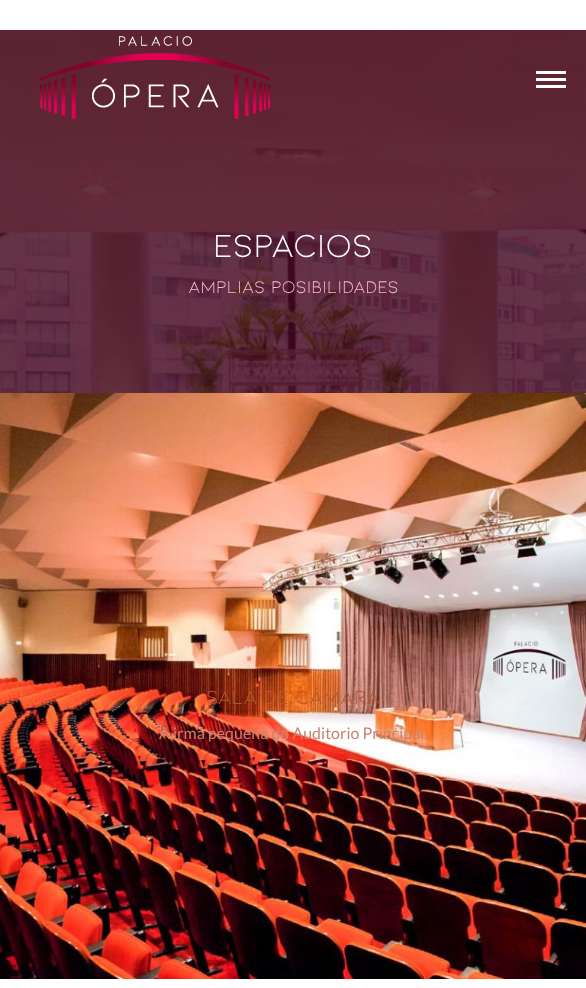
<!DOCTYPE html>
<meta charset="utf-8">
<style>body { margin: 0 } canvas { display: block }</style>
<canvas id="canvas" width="586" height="988"></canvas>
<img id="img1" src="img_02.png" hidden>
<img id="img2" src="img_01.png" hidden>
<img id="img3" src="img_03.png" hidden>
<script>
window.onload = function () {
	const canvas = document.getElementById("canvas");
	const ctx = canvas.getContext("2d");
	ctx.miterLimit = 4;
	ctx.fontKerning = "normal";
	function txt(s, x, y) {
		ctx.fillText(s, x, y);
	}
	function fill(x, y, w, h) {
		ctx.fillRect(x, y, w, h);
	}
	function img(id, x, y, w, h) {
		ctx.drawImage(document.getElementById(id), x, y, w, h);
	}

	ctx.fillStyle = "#FFFFFF";
	fill(0, 0, 586, 988);
	img("img1", 0, 30, 586, 363);
	img("img2", 40, 36, 231, 83);
	fill(536, 71, 30, 3);
	fill(536, 78, 30, 3);
	fill(536, 85, 30, 3);
	img("img3", 0, 393, 586, 586);
	ctx.font = "34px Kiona";
	txt("ESPACIOS", 213, 257);
	ctx.font = "18px Kiona";
	ctx.fillStyle = "#FFBACB";
	txt("amplias posibilidades", 188, 293);
	ctx.font = "20px Kiona";
	ctx.fillStyle = "#B45630";
	txt("Sala de Cámara", 206, 704);
	ctx.font = "16px Lato";
	ctx.fillStyle = "#CA8171";
	txt("A irmá pequena do Auditorio Principal.", 159, 739);
};
</script>
